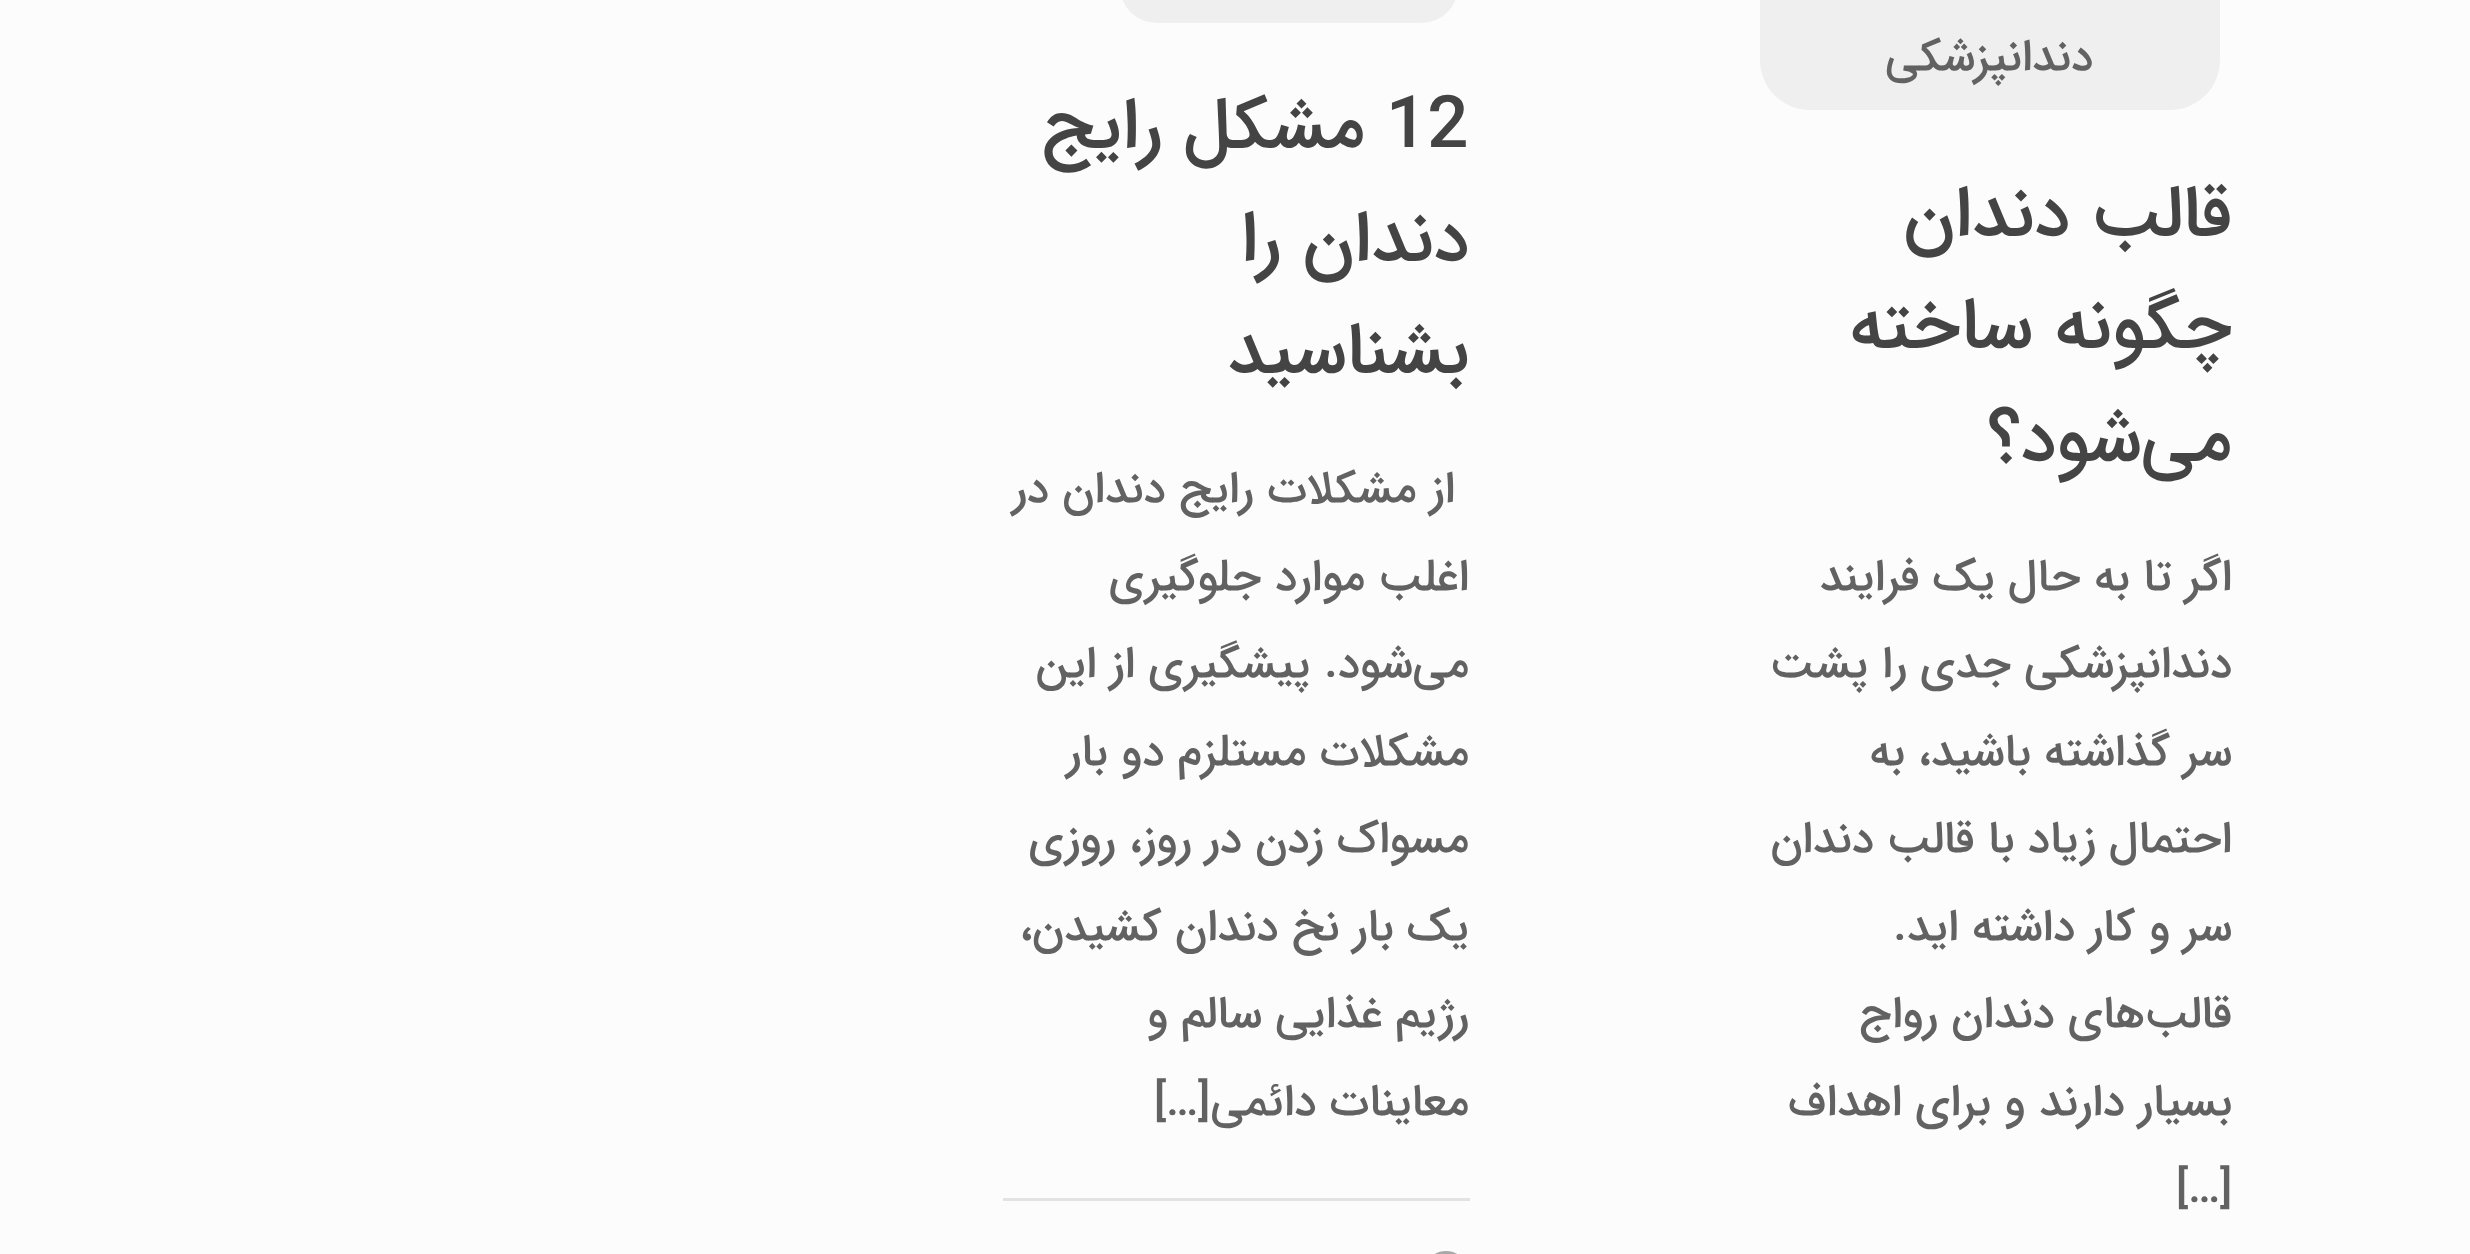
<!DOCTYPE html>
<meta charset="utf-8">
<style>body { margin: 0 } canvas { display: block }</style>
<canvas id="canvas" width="2470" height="1254"></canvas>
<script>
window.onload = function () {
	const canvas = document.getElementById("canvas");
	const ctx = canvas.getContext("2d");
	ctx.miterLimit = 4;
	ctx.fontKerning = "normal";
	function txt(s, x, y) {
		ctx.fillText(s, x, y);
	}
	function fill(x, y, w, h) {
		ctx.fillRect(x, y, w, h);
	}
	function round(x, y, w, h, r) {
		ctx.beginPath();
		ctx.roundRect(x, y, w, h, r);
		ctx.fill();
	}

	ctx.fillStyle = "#FCFCFC";
	fill(0, 0, 2470, 1254);
	ctx.fillStyle = "#EFEFEF";
	round(1760, -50, 460, 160, 50);
	round(1120, -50, 338, 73, 50);
	ctx.fillStyle = "#E3E3E3";
	fill(1003, 1198, 467, 3);
	ctx.fillStyle = "#A8A8A8";
	ctx.beginPath();
	ctx.moveTo(1446, 1251);
	ctx.bezierCurveTo(1473, 1251, 1473, 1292, 1446, 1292);
	ctx.bezierCurveTo(1419, 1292, 1419, 1251, 1446, 1251);
	ctx.closePath();
	ctx.moveTo(1446, 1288);
	ctx.bezierCurveTo(1467, 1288, 1467, 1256, 1446, 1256);
	ctx.bezierCurveTo(1424, 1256, 1424, 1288, 1446, 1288);
	ctx.closePath();
	ctx.moveTo(1447, 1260);
	ctx.lineTo(1447, 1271);
	ctx.lineTo(1454, 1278);
	ctx.lineTo(1452, 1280);
	ctx.lineTo(1444, 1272);
	ctx.lineTo(1444, 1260);
	ctx.closePath();
	ctx.fill();
	ctx.direction = "rtl";
	ctx.font = "500 45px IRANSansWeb";
	ctx.fillStyle = "#626262";
	txt("دندانپزشکی", 2093, 70);
	ctx.font = "500 72.5px IRANSansWeb";
	ctx.fillStyle = "#444444";
	txt("قالب دندان", 2232, 235);
	txt("چگونه ساخته", 2232, 347);
	txt("می‌شود؟", 2232, 460);
	ctx.font = "500 45px IRANSansWeb";
	ctx.fillStyle = "#626262";
	txt("اگر تا به حال یک فرایند", 2232, 590);
	txt("دندانپزشکی جدی را پشت", 2232, 677);
	txt("سر گذاشته باشید، به", 2232, 765);
	txt("احتمال زیاد با قالب دندان", 2232, 852);
	txt("سر و کار داشته‌ اید.", 2232, 940);
	txt("قالب‌های دندان رواج", 2232, 1027);
	txt("بسیار دارند و برای اهداف", 2232, 1115);
	ctx.direction = "ltr";
	txt("[…]", 2176, 1202);
	ctx.font = "500 72.5px IRANSansWeb";
	ctx.fillStyle = "#444444";
	txt("12", 1386, 147);
	ctx.direction = "rtl";
	txt("مشکل رایج", 1365, 147);
	txt("دندان را", 1469, 260);
	txt("بشناسید", 1469, 372);
	ctx.font = "500 45px IRANSansWeb";
	ctx.fillStyle = "#626262";
	txt("از مشکلات رایج دندان در", 1455, 502);
	txt("اغلب موارد جلوگیری", 1469, 590);
	txt("می‌شود. پیشگیری از این", 1469, 677);
	txt("مشکلات مستلزم دو بار", 1469, 765);
	txt("مسواک زدن در روز، روزی", 1469, 852);
	txt("یک ‌بار نخ دندان کشیدن،", 1469, 940);
	txt("رژیم غذایی سالم و", 1469, 1027);
	txt("معاینات دائمی", 1469, 1115);
	ctx.direction = "ltr";
	txt("[…]", 1154, 1115);
};
</script>
